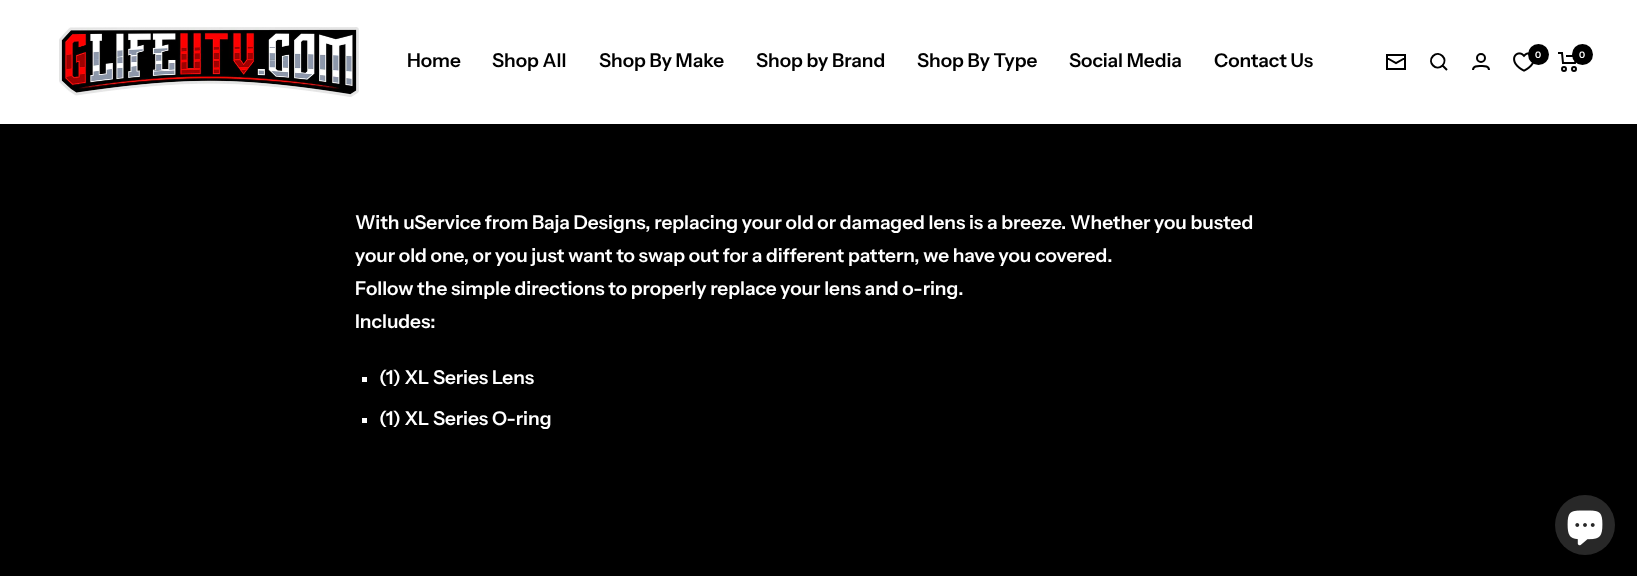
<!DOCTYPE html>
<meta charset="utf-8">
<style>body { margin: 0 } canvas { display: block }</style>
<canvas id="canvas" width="1637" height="576"></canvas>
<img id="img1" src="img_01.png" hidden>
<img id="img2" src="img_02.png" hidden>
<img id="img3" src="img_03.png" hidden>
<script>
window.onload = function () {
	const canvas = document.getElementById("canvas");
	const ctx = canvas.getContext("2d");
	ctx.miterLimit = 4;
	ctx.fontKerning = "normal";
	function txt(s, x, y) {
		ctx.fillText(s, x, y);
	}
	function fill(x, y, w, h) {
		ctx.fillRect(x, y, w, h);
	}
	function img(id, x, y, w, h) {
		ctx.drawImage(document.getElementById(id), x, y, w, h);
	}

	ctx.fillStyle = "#000000";
	fill(0, 0, 1637, 576);
	ctx.fillStyle = "#FFFFFF";
	fill(0, 0, 1637, 124);
	img("img1", 59, 27, 300, 70);
	ctx.beginPath();
	ctx.moveTo(1405, 58);
	ctx.lineTo(1396, 63);
	ctx.lineTo(1387, 58);
	ctx.moveTo(1387, 55);
	ctx.lineTo(1405, 55);
	ctx.lineTo(1405, 69);
	ctx.lineTo(1387, 69);
	ctx.closePath();
	ctx.moveTo(1442.5, 65.5);
	ctx.bezierCurveTo(1448.5, 59, 1439.5, 50, 1433, 56);
	ctx.bezierCurveTo(1427, 62.5, 1436, 71.5, 1442.5, 65.5);
	ctx.closePath();
	ctx.moveTo(1442.5, 65.5);
	ctx.lineTo(1447, 70);
	ctx.strokeStyle = "#000000";
	ctx.lineWidth = 2;
	ctx.stroke();
	ctx.beginPath();
	ctx.arc(1481, 58, 4, 0, Math.PI * 2);
	ctx.stroke();
	ctx.beginPath();
	ctx.moveTo(1473, 70);
	ctx.bezierCurveTo(1473, 65.5, 1478, 66, 1481, 66);
	ctx.bezierCurveTo(1484, 66, 1489, 65.5, 1489, 70);
	ctx.stroke();
	img("img2", 1513, 52, 21, 20);
	ctx.fillStyle = "#000000";
	ctx.beginPath();
	ctx.arc(1538.5, 54.5, 10.5, 0, Math.PI * 2);
	ctx.fill();
	ctx.beginPath();
	ctx.moveTo(1558, 53);
	ctx.lineTo(1562, 53);
	ctx.lineTo(1563, 63);
	ctx.lineTo(1575, 63);
	ctx.lineTo(1577, 56);
	ctx.lineTo(1566, 56);
	ctx.stroke();
	ctx.beginPath();
	ctx.arc(1564, 69, 2, 0, Math.PI * 2);
	ctx.stroke();
	ctx.beginPath();
	ctx.arc(1574, 69, 2, 0, Math.PI * 2);
	ctx.stroke();
	ctx.beginPath();
	ctx.arc(1582.5, 54.5, 10.5, 0, Math.PI * 2);
	ctx.fill();
	ctx.fillStyle = "#FFFFFF";
	fill(362, 377, 5, 5);
	fill(362, 418, 5, 5);
	ctx.fillStyle = "#282828";
	ctx.beginPath();
	ctx.arc(1585, 525, 30, 0, Math.PI * 2);
	ctx.fill();
	img("img3", 1567, 510, 36, 36);
	ctx.font = "600 19px Instrument Sans";
	ctx.fillStyle = "#000000";
	txt("Home", 407, 67);
	txt("Shop All", 492, 67);
	txt("Shop By Make", 599, 67);
	txt("Shop by Brand", 756, 67);
	txt("Shop By Type", 917, 67);
	txt("Social Media", 1069, 67);
	txt("Contact Us", 1214, 67);
	ctx.font = "600 9px Instrument Sans";
	ctx.fillStyle = "#FFFFFF";
	txt("0", 1535, 58);
	txt("0", 1579, 58);
	ctx.font = "600 19px Instrument Sans";
	txt("With uService from Baja Designs, replacing your old or damaged lens is a breeze. Whether you busted", 355, 229);
	txt("your old one, or you just want to swap out for a different pattern, we have you covered.", 355, 262);
	txt("Follow the simple directions to properly replace your lens and o-ring.", 355, 295);
	txt("Includes:", 355, 328);
	txt("(1) XL Series Lens", 379, 384);
	txt("(1) XL Series O-ring", 379, 425);
};
</script>
